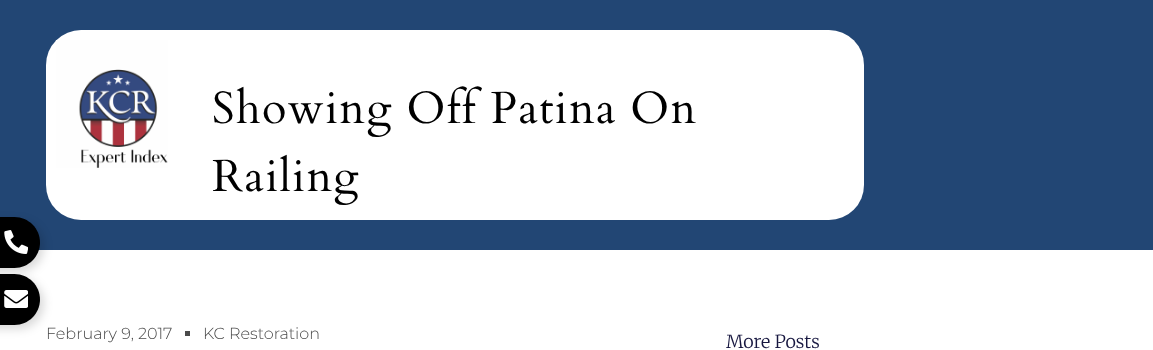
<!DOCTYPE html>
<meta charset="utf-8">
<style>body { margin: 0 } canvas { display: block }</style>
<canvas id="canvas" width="1153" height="350"></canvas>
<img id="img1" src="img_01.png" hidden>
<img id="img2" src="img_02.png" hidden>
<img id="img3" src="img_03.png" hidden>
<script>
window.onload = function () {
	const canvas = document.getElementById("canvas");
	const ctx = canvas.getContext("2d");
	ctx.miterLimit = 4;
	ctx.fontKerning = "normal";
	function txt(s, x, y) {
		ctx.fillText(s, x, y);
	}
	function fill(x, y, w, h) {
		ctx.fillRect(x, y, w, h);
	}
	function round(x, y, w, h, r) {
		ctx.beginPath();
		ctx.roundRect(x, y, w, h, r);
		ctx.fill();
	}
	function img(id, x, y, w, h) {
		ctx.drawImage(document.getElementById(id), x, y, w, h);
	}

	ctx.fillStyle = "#FFFFFF";
	fill(0, 0, 1153, 350);
	ctx.fillStyle = "#224674";
	fill(0, 0, 1153, 250);
	ctx.fillStyle = "#FFFFFF";
	round(46, 30, 818, 190, 35);
	ctx.fillStyle = "rgba(0, 0, 0, 0.15)";
	ctx.filter = "blur(5px)";
	ctx.beginPath();
	ctx.roundRect(-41, 221, 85, 51, 25.5);
	ctx.fill();
	ctx.filter = "none";
	ctx.fillStyle = "#000000";
	ctx.beginPath();
	ctx.moveTo(-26, 217);
	ctx.lineTo(14.5, 217);
	ctx.bezierCurveTo(28.5, 217, 40, 228.5, 40, 242.5);
	ctx.bezierCurveTo(40, 256.5, 28.5, 268, 14.5, 268);
	ctx.lineTo(-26, 268);
	ctx.closePath();
	ctx.fill();
	img("img1", 4, 230, 24, 24);
	ctx.fillStyle = "rgba(0, 0, 0, 0.15)";
	ctx.filter = "blur(5px)";
	ctx.beginPath();
	ctx.roundRect(-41, 278, 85, 51, 25.5);
	ctx.fill();
	ctx.filter = "none";
	ctx.fillStyle = "#000000";
	ctx.beginPath();
	ctx.moveTo(-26, 274);
	ctx.lineTo(14.5, 274);
	ctx.bezierCurveTo(28.5, 274, 40, 285.5, 40, 299.5);
	ctx.bezierCurveTo(40, 313.5, 28.5, 325, 14.5, 325);
	ctx.lineTo(-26, 325);
	ctx.closePath();
	ctx.fill();
	img("img2", 4, 290, 24, 18);
	img("img3", 56, 40, 112, 128);
	ctx.fillStyle = "#4A4A4A";
	fill(185, 331, 5, 5);
	ctx.letterSpacing = "1.4px";
	ctx.font = "45px Cardo";
	ctx.fillStyle = "#000000";
	txt("Showing Off Patina On", 212, 123);
	txt("Railing", 212, 191);
	ctx.letterSpacing = "0px";
	ctx.font = "300 16px Montserrat";
	ctx.fillStyle = "#4A4A4A";
	txt("February 9, 2017", 46, 339);
	txt("KC Restoration", 203, 339);
	ctx.font = "300 18px Merriweather";
	ctx.fillStyle = "#16163F";
	txt("More Posts", 726, 348);
};
</script>
